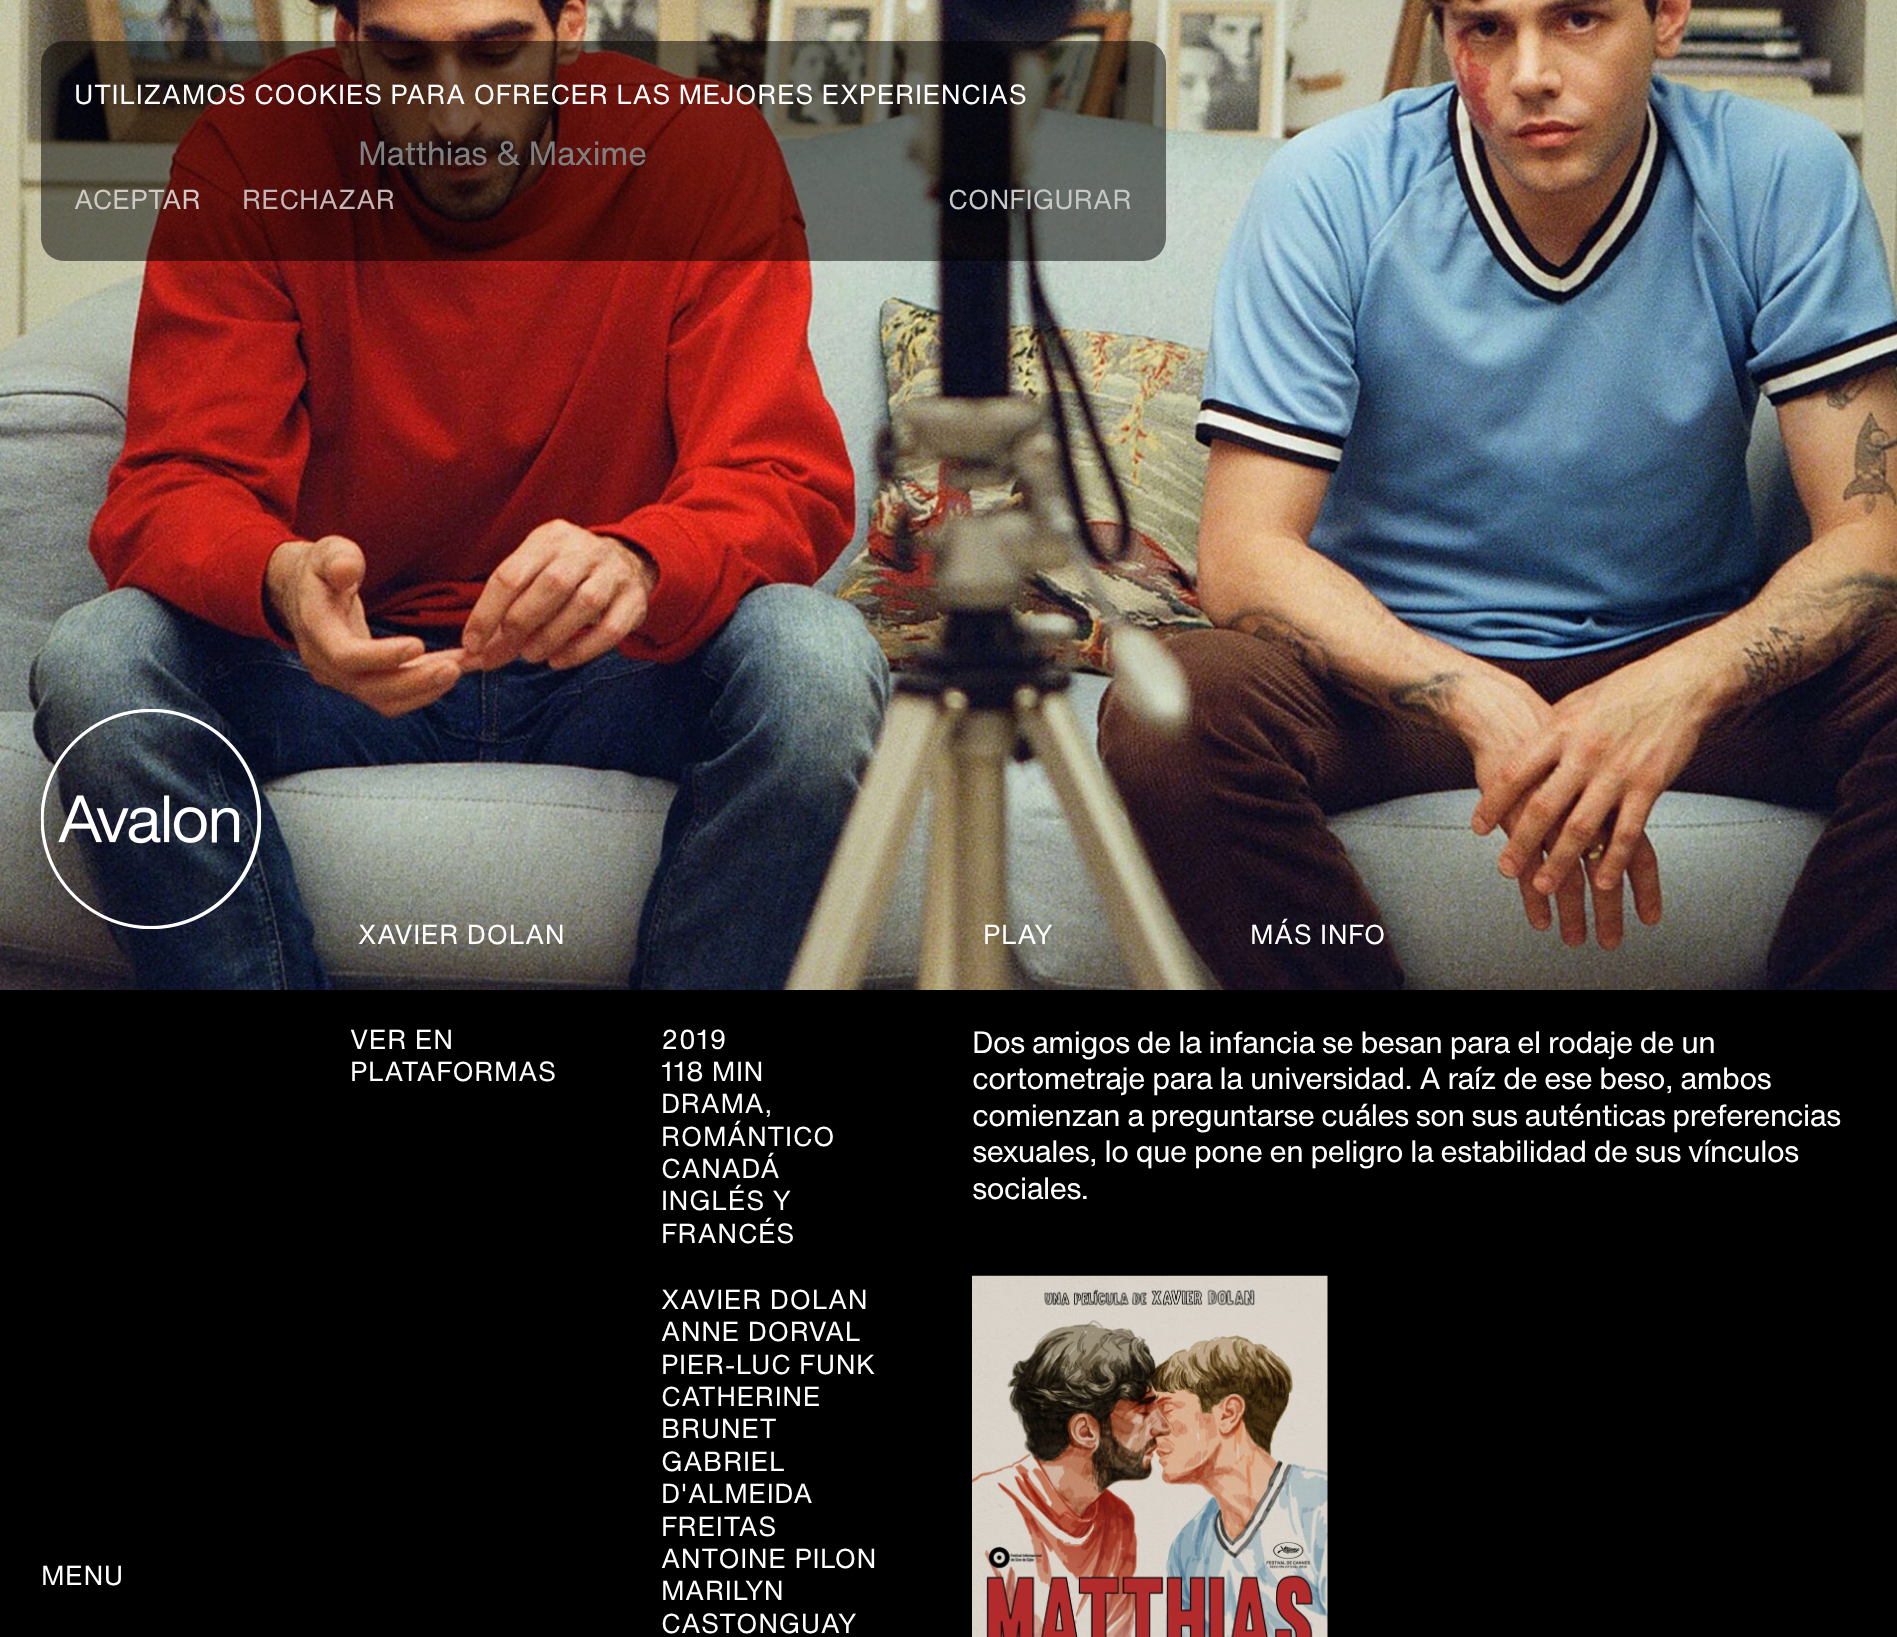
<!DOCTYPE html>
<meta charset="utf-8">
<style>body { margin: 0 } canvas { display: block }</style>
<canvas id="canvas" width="1897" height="1637"></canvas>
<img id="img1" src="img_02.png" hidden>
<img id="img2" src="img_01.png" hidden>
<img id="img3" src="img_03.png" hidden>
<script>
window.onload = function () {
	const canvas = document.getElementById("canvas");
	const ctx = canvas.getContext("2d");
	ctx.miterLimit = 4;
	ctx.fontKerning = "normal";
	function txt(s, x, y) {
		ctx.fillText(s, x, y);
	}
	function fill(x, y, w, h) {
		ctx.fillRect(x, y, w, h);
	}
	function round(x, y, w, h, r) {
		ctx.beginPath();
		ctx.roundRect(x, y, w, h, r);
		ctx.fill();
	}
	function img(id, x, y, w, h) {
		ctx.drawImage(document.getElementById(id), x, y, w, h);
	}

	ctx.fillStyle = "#000000";
	fill(0, 0, 1897, 1637);
	img("img1", 0, 0, 1897, 990);
	img("img2", 41, 709, 220, 220);
	img("img3", 972, 1275, 356, 362);
	ctx.letterSpacing = "0.45px";
	ctx.font = "27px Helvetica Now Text";
	ctx.fillStyle = "#FFFFFF";
	txt("MENU", 41, 1585);
	ctx.letterSpacing = "-0.7px";
	ctx.font = "33px Helvetica Now Text";
	txt("Matthias & Maxime", 358, 165);
	ctx.fillStyle = "rgba(0, 0, 0, 0.5)";
	round(41, 41, 1125, 220, 23);
	ctx.letterSpacing = "0px";
	ctx.font = "27px Helvetica Now Text";
	ctx.fillStyle = "#C5C6C6";
	txt("CONFIGURAR", 948, 209);
	ctx.fillStyle = "#C5B6B6";
	txt("RECHAZAR", 242, 209);
	ctx.fillStyle = "#CFC8C4";
	txt("ACEPTAR", 74, 209);
	ctx.letterSpacing = "0.45px";
	ctx.fillStyle = "#FFFFFF";
	txt("UTILIZAMOS COOKIES PARA OFRECER LAS MEJORES EXPERIENCIAS", 74, 104);
	ctx.letterSpacing = "0.5px";
	txt("XAVIER DOLAN", 358, 944);
	ctx.letterSpacing = "0.45px";
	txt("PLAY", 983, 944);
	txt("MÁS INFO", 1250, 944);
	ctx.letterSpacing = "0.5px";
	txt("VER EN", 350, 1049);
	txt("PLATAFORMAS", 350, 1081);
	txt("2019", 661, 1049);
	txt("118 MIN", 661, 1081);
	txt("DRAMA,", 661, 1113);
	txt("ROMÁNTICO", 661, 1146);
	txt("CANADÁ", 661, 1178);
	txt("INGLÉS Y", 661, 1210);
	txt("FRANCÉS", 661, 1243);
	txt("XAVIER DOLAN", 661, 1309);
	txt("ANNE DORVAL", 661, 1341);
	txt("PIER-LUC FUNK", 661, 1374);
	txt("CATHERINE", 661, 1406);
	txt("BRUNET", 661, 1438);
	txt("GABRIEL", 661, 1471);
	txt("D'ALMEIDA", 661, 1503);
	txt("FREITAS", 661, 1536);
	txt("ANTOINE PILON", 661, 1568);
	txt("MARILYN", 661, 1600);
	txt("CASTONGUAY", 661, 1633);
	ctx.letterSpacing = "-0.9px";
	ctx.font = "30.35px Helvetica Now Text";
	txt("Dos amigos de la infancia se besan para el rodaje de un", 972, 1053);
	ctx.wordSpacing = "-0.1px";
	txt("cortometraje para la universidad. A raíz de ese beso, ambos", 972, 1089);
	ctx.wordSpacing = "-0.25px";
	txt("comienzan a preguntarse cuáles son sus auténticas preferencias", 972, 1126);
	ctx.wordSpacing = "-0.1px";
	txt("sexuales, lo que pone en peligro la estabilidad de sus vínculos", 972, 1162);
	ctx.wordSpacing = "0px";
	txt("sociales.", 972, 1199);
};
</script>
